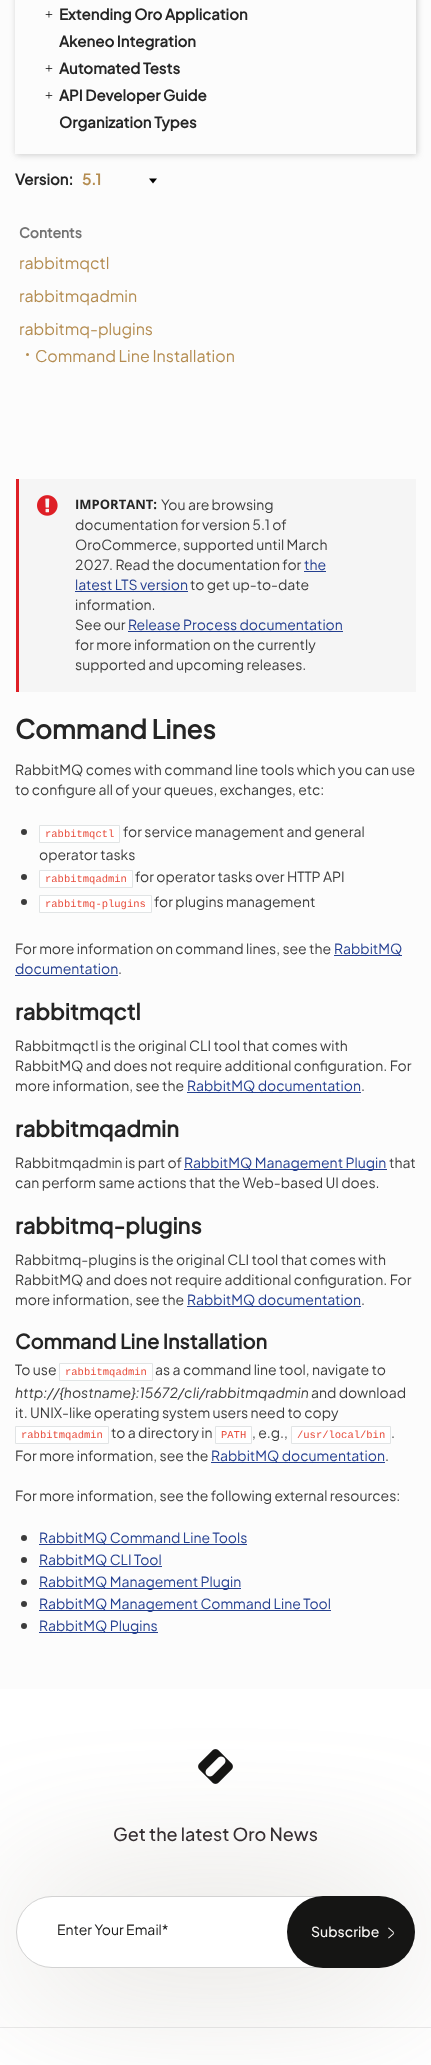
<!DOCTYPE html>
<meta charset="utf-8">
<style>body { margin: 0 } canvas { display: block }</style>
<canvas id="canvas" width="431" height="2065"></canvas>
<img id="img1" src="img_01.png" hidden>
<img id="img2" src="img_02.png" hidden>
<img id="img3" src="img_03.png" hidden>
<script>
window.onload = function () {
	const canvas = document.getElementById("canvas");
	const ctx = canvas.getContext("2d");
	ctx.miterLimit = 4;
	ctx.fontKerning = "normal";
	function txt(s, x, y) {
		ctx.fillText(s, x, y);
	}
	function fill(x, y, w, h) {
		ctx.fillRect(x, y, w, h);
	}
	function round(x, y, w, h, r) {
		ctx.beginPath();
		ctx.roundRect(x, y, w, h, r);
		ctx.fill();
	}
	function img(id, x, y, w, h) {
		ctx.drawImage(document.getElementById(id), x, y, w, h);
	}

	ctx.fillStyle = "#FCFCFC";
	fill(0, 0, 431, 2065);
	ctx.save();
	ctx.beginPath();
	ctx.moveTo(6, 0);
	ctx.lineTo(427, 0);
	ctx.lineTo(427, 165);
	ctx.lineTo(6, 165);
	ctx.closePath();
	ctx.moveTo(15, -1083);
	ctx.lineTo(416, -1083);
	ctx.lineTo(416, 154);
	ctx.lineTo(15, 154);
	ctx.closePath();
	ctx.clip("evenodd");
	ctx.fillStyle = "rgba(133, 133, 133, 0.4)";
	ctx.filter = "blur(3px)";
	ctx.beginPath();
	ctx.rect(16, -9, 401, 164);
	ctx.fill();
	ctx.filter = "none";
	ctx.restore();
	ctx.fillStyle = "#000000";
	ctx.beginPath();
	ctx.moveTo(149, 178.5);
	ctx.lineTo(157, 178.5);
	ctx.lineTo(153, 183.5);
	ctx.closePath();
	ctx.fill();
	ctx.fillStyle = "#B48C50";
	ctx.beginPath();
	ctx.arc(27.5, 354.5, 1.5, 0, Math.PI * 2);
	ctx.fill();
	ctx.fillStyle = "#F5F5F5";
	fill(19, 479, 397, 213);
	ctx.fillStyle = "#DE1F26";
	fill(16, 479, 3, 213);
	ctx.fillStyle = "#243F90";
	fill(304, 571, 22, 1);
	fill(75, 591, 113, 1);
	img("img1", 37, 495, 21, 21);
	fill(128, 631, 215, 1);
	ctx.fillStyle = "#3C3C3C";
	ctx.beginPath();
	ctx.arc(24, 832, 3, 0, Math.PI * 2);
	ctx.fill();
	ctx.fillStyle = "#FFFFFF";
	ctx.beginPath();
	ctx.rect(39.5, 825.5, 80, 17);
	ctx.fill();
	ctx.strokeStyle = "#E1E4E5";
	ctx.stroke();
	ctx.fillStyle = "#3C3C3C";
	ctx.beginPath();
	ctx.arc(24, 877, 3, 0, Math.PI * 2);
	ctx.fill();
	ctx.fillStyle = "#FFFFFF";
	ctx.beginPath();
	ctx.rect(39.5, 870.5, 93, 17);
	ctx.fill();
	ctx.stroke();
	ctx.fillStyle = "#3C3C3C";
	ctx.beginPath();
	ctx.arc(24, 902, 3, 0, Math.PI * 2);
	ctx.fill();
	ctx.fillStyle = "#FFFFFF";
	ctx.beginPath();
	ctx.rect(39.5, 895.5, 112, 17);
	ctx.fill();
	ctx.stroke();
	ctx.fillStyle = "#243F90";
	fill(334, 955, 68, 1);
	fill(15, 975, 103, 1);
	fill(187, 1092, 174, 1);
	fill(184, 1169, 203, 1);
	fill(187, 1306, 174, 1);
	ctx.fillStyle = "#FFFFFF";
	ctx.beginPath();
	ctx.rect(59.5, 1363.5, 93, 17);
	ctx.fill();
	ctx.stroke();
	ctx.beginPath();
	ctx.rect(15.5, 1426.5, 93, 17);
	ctx.fill();
	ctx.stroke();
	ctx.beginPath();
	ctx.rect(215.5, 1426.5, 36, 17);
	ctx.fill();
	ctx.stroke();
	ctx.beginPath();
	ctx.rect(291.5, 1426.5, 99, 17);
	ctx.fill();
	ctx.stroke();
	ctx.fillStyle = "#243F90";
	fill(211, 1462, 174, 1);
	ctx.fillStyle = "#3C3C3C";
	ctx.beginPath();
	ctx.arc(24, 1538, 3, 0, Math.PI * 2);
	ctx.fill();
	ctx.fillStyle = "#243F90";
	fill(39, 1544, 208, 1);
	ctx.fillStyle = "#3C3C3C";
	ctx.beginPath();
	ctx.arc(24, 1560, 3, 0, Math.PI * 2);
	ctx.fill();
	ctx.fillStyle = "#243F90";
	fill(39, 1566, 123, 1);
	ctx.fillStyle = "#3C3C3C";
	ctx.beginPath();
	ctx.arc(24, 1582, 3, 0, Math.PI * 2);
	ctx.fill();
	ctx.fillStyle = "#243F90";
	fill(39, 1588, 202, 1);
	ctx.fillStyle = "#3C3C3C";
	ctx.beginPath();
	ctx.arc(24, 1604, 3, 0, Math.PI * 2);
	ctx.fill();
	ctx.fillStyle = "#243F90";
	fill(39, 1610, 292, 1);
	ctx.fillStyle = "#3C3C3C";
	ctx.beginPath();
	ctx.arc(24, 1626, 3, 0, Math.PI * 2);
	ctx.fill();
	ctx.fillStyle = "#243F90";
	fill(39, 1632, 119, 1);
	ctx.fillStyle = "#FFFFFF";
	fill(0, 1689, 431, 376);
	img("img2", 198, 1749, 35, 35);
	ctx.fillStyle = "rgba(133, 122, 105, 0.34)";
	ctx.filter = "blur(77.5px)";
	ctx.beginPath();
	ctx.roundRect(16, 1900, 399, 72, 36);
	ctx.fill();
	ctx.filter = "none";
	ctx.fillStyle = "#FFFFFF";
	ctx.beginPath();
	ctx.roundRect(16.5, 1896.5, 398, 71, 35.5);
	ctx.fill();
	ctx.strokeStyle = "#D2D2D2";
	ctx.stroke();
	ctx.fillStyle = "#151514";
	round(287, 1896, 128, 72, 36);
	img("img3", 388, 1927, 7, 12);
	ctx.fillStyle = "rgba(53, 46, 49, 0.1)";
	fill(0, 2027, 431, 1);
	ctx.font = "14px Liberation Serif";
	ctx.fillStyle = "#000000";
	txt("+", 45, 19);
	ctx.font = "bold 15px Plus Jakarta Sans";
	ctx.fillStyle = "#252525";
	txt("Extending Oro Application", 59, 20);
	txt("Akeneo Integration", 59, 47);
	ctx.font = "14px Liberation Serif";
	ctx.fillStyle = "#000000";
	txt("+", 45, 73);
	ctx.font = "bold 15px Plus Jakarta Sans";
	ctx.fillStyle = "#252525";
	txt("Automated Tests", 59, 74);
	ctx.font = "14px Liberation Serif";
	ctx.fillStyle = "#000000";
	txt("+", 45, 100);
	ctx.font = "bold 15px Plus Jakarta Sans";
	ctx.fillStyle = "#252525";
	txt("API Developer Guide", 59, 101);
	txt("Organization Types", 59, 128);
	txt("Version:", 15, 185);
	ctx.fillStyle = "#B48C50";
	txt("5.1", 82, 185);
	ctx.font = "bold 14px Plus Jakarta Sans";
	ctx.fillStyle = "#727272";
	txt("Contents", 19, 238);
	ctx.font = "16px Plus Jakarta Sans";
	ctx.fillStyle = "#B48C50";
	txt("rabbitmqctl", 19, 269);
	txt("rabbitmqadmin", 19, 302);
	txt("rabbitmq-plugins", 19, 335);
	txt("Command Line Installation", 35, 362);
	ctx.font = "14px Plus Jakarta Sans";
	ctx.fillStyle = "#3C3C3C";
	txt("You are browsing", 161, 510);
	txt("documentation for version 5.1 of", 75, 530);
	txt("OroCommerce, supported until March", 75, 550);
	txt("2027. Read the documentation for", 75, 570);
	ctx.fillStyle = "#243F90";
	txt("the", 304, 570);
	txt("latest LTS version", 75, 590);
	ctx.fillStyle = "#3C3C3C";
	txt("to get up-to-date", 190, 590);
	txt("information.", 75, 610);
	ctx.font = "bold 13px Open Sans";
	ctx.fillStyle = "#252525";
	txt("IMPORTANT:", 75, 509);
	ctx.font = "14px Plus Jakarta Sans";
	ctx.fillStyle = "#3C3C3C";
	txt("See our", 75, 630);
	ctx.fillStyle = "#243F90";
	txt("Release Process documentation", 128, 630);
	ctx.fillStyle = "#3C3C3C";
	txt("for more information on the currently", 75, 650);
	txt("supported and upcoming releases.", 75, 670);
	ctx.font = "bold 26px Plus Jakarta Sans";
	ctx.fillStyle = "#252525";
	txt("Command Lines", 15, 739);
	ctx.font = "14px Plus Jakarta Sans";
	ctx.fillStyle = "#3C3C3C";
	txt("RabbitMQ comes with command line tools which you can use", 15, 775);
	txt("to configure all of your queues, exchanges, etc:", 15, 795);
	ctx.font = "10.5px Liberation Mono";
	ctx.fillStyle = "#E74C3C";
	txt("rabbitmqctl", 45, 837);
	ctx.font = "14px Plus Jakarta Sans";
	ctx.fillStyle = "#3C3C3C";
	txt("for service management and general", 123, 837);
	txt("operator tasks", 39, 860);
	ctx.font = "10.5px Liberation Mono";
	ctx.fillStyle = "#E74C3C";
	txt("rabbitmqadmin", 45, 882);
	ctx.font = "14px Plus Jakarta Sans";
	ctx.fillStyle = "#3C3C3C";
	txt("for operator tasks over HTTP API", 135, 882);
	ctx.font = "10.5px Liberation Mono";
	ctx.fillStyle = "#E74C3C";
	txt("rabbitmq-plugins", 45, 907);
	ctx.font = "14px Plus Jakarta Sans";
	ctx.fillStyle = "#3C3C3C";
	txt("for plugins management", 154, 907);
	txt("For more information on command lines, see the", 15, 954);
	ctx.fillStyle = "#243F90";
	txt("RabbitMQ", 334, 954);
	txt("documentation", 15, 974);
	ctx.fillStyle = "#3C3C3C";
	txt(".", 118, 974);
	ctx.font = "bold 22px Plus Jakarta Sans";
	ctx.fillStyle = "#252525";
	txt("rabbitmqctl", 15, 1020);
	ctx.font = "14px Plus Jakarta Sans";
	ctx.fillStyle = "#3C3C3C";
	txt("Rabbitmqctl is the original CLI tool that comes with", 15, 1051);
	txt("RabbitMQ and does not require additional configuration. For", 15, 1071);
	txt("more information, see the", 15, 1091);
	ctx.fillStyle = "#243F90";
	txt("RabbitMQ documentation", 187, 1091);
	ctx.fillStyle = "#3C3C3C";
	txt(".", 361, 1091);
	ctx.font = "bold 22px Plus Jakarta Sans";
	ctx.fillStyle = "#252525";
	txt("rabbitmqadmin", 15, 1137);
	ctx.font = "14px Plus Jakarta Sans";
	ctx.fillStyle = "#3C3C3C";
	txt("Rabbitmqadmin is part of", 15, 1168);
	ctx.fillStyle = "#243F90";
	txt("RabbitMQ Management Plugin", 184, 1168);
	ctx.fillStyle = "#3C3C3C";
	txt("that", 389, 1168);
	txt("can perform same actions that the Web-based UI does.", 15, 1188);
	ctx.font = "bold 22px Plus Jakarta Sans";
	ctx.fillStyle = "#252525";
	txt("rabbitmq-plugins", 15, 1234);
	ctx.font = "14px Plus Jakarta Sans";
	ctx.fillStyle = "#3C3C3C";
	txt("Rabbitmq-plugins is the original CLI tool that comes with", 15, 1265);
	txt("RabbitMQ and does not require additional configuration. For", 15, 1285);
	txt("more information, see the", 15, 1305);
	ctx.fillStyle = "#243F90";
	txt("RabbitMQ documentation", 187, 1305);
	ctx.fillStyle = "#3C3C3C";
	txt(".", 361, 1305);
	ctx.font = "bold 20px Plus Jakarta Sans";
	ctx.fillStyle = "#252525";
	txt("Command Line Installation", 15, 1349);
	ctx.font = "14px Plus Jakarta Sans";
	ctx.fillStyle = "#3C3C3C";
	txt("To use", 15, 1375);
	ctx.font = "10.5px Liberation Mono";
	ctx.fillStyle = "#E74C3C";
	txt("rabbitmqadmin", 65, 1375);
	ctx.font = "14px Plus Jakarta Sans";
	ctx.fillStyle = "#3C3C3C";
	txt("as a command line tool, navigate to", 155, 1375);
	ctx.font = "italic 14px Plus Jakarta Sans";
	txt("http://{hostname}:15672/cli/rabbitmqadmin", 15, 1398);
	ctx.font = "14px Plus Jakarta Sans";
	txt("and download", 311, 1398);
	txt("it. UNIX-like operating system users need to copy", 15, 1418);
	ctx.font = "10.5px Liberation Mono";
	ctx.fillStyle = "#E74C3C";
	txt("rabbitmqadmin", 21, 1438);
	ctx.font = "14px Plus Jakarta Sans";
	ctx.fillStyle = "#3C3C3C";
	txt("to a directory in", 111, 1438);
	ctx.font = "10.5px Liberation Mono";
	ctx.fillStyle = "#E74C3C";
	txt("PATH", 221, 1438);
	ctx.font = "14px Plus Jakarta Sans";
	ctx.fillStyle = "#3C3C3C";
	txt(", e.g.,", 252, 1438);
	ctx.font = "10.5px Liberation Mono";
	ctx.fillStyle = "#E74C3C";
	txt("/usr/local/bin", 297, 1438);
	ctx.font = "14px Plus Jakarta Sans";
	ctx.fillStyle = "#3C3C3C";
	txt(".", 391, 1438);
	txt("For more information, see the", 15, 1461);
	ctx.fillStyle = "#243F90";
	txt("RabbitMQ documentation", 211, 1461);
	ctx.fillStyle = "#3C3C3C";
	txt(".", 385, 1461);
	txt("For more information, see the following external resources:", 15, 1501);
	ctx.fillStyle = "#243F90";
	txt("RabbitMQ Command Line Tools", 39, 1543);
	txt("RabbitMQ CLI Tool", 39, 1565);
	txt("RabbitMQ Management Plugin", 39, 1587);
	txt("RabbitMQ Management Command Line Tool", 39, 1609);
	txt("RabbitMQ Plugins", 39, 1631);
	ctx.font = "500 18px Plus Jakarta Sans";
	ctx.fillStyle = "#352E31";
	txt("Get the latest Oro News", 113, 1841);
	ctx.font = "14px Plus Jakarta Sans";
	ctx.fillStyle = "#151514";
	txt("Enter Your Email*", 57, 1935);
	ctx.font = "500 14px Plus Jakarta Sans";
	ctx.fillStyle = "#F9F7F5";
	txt("Subscribe", 311, 1937);
};
</script>
